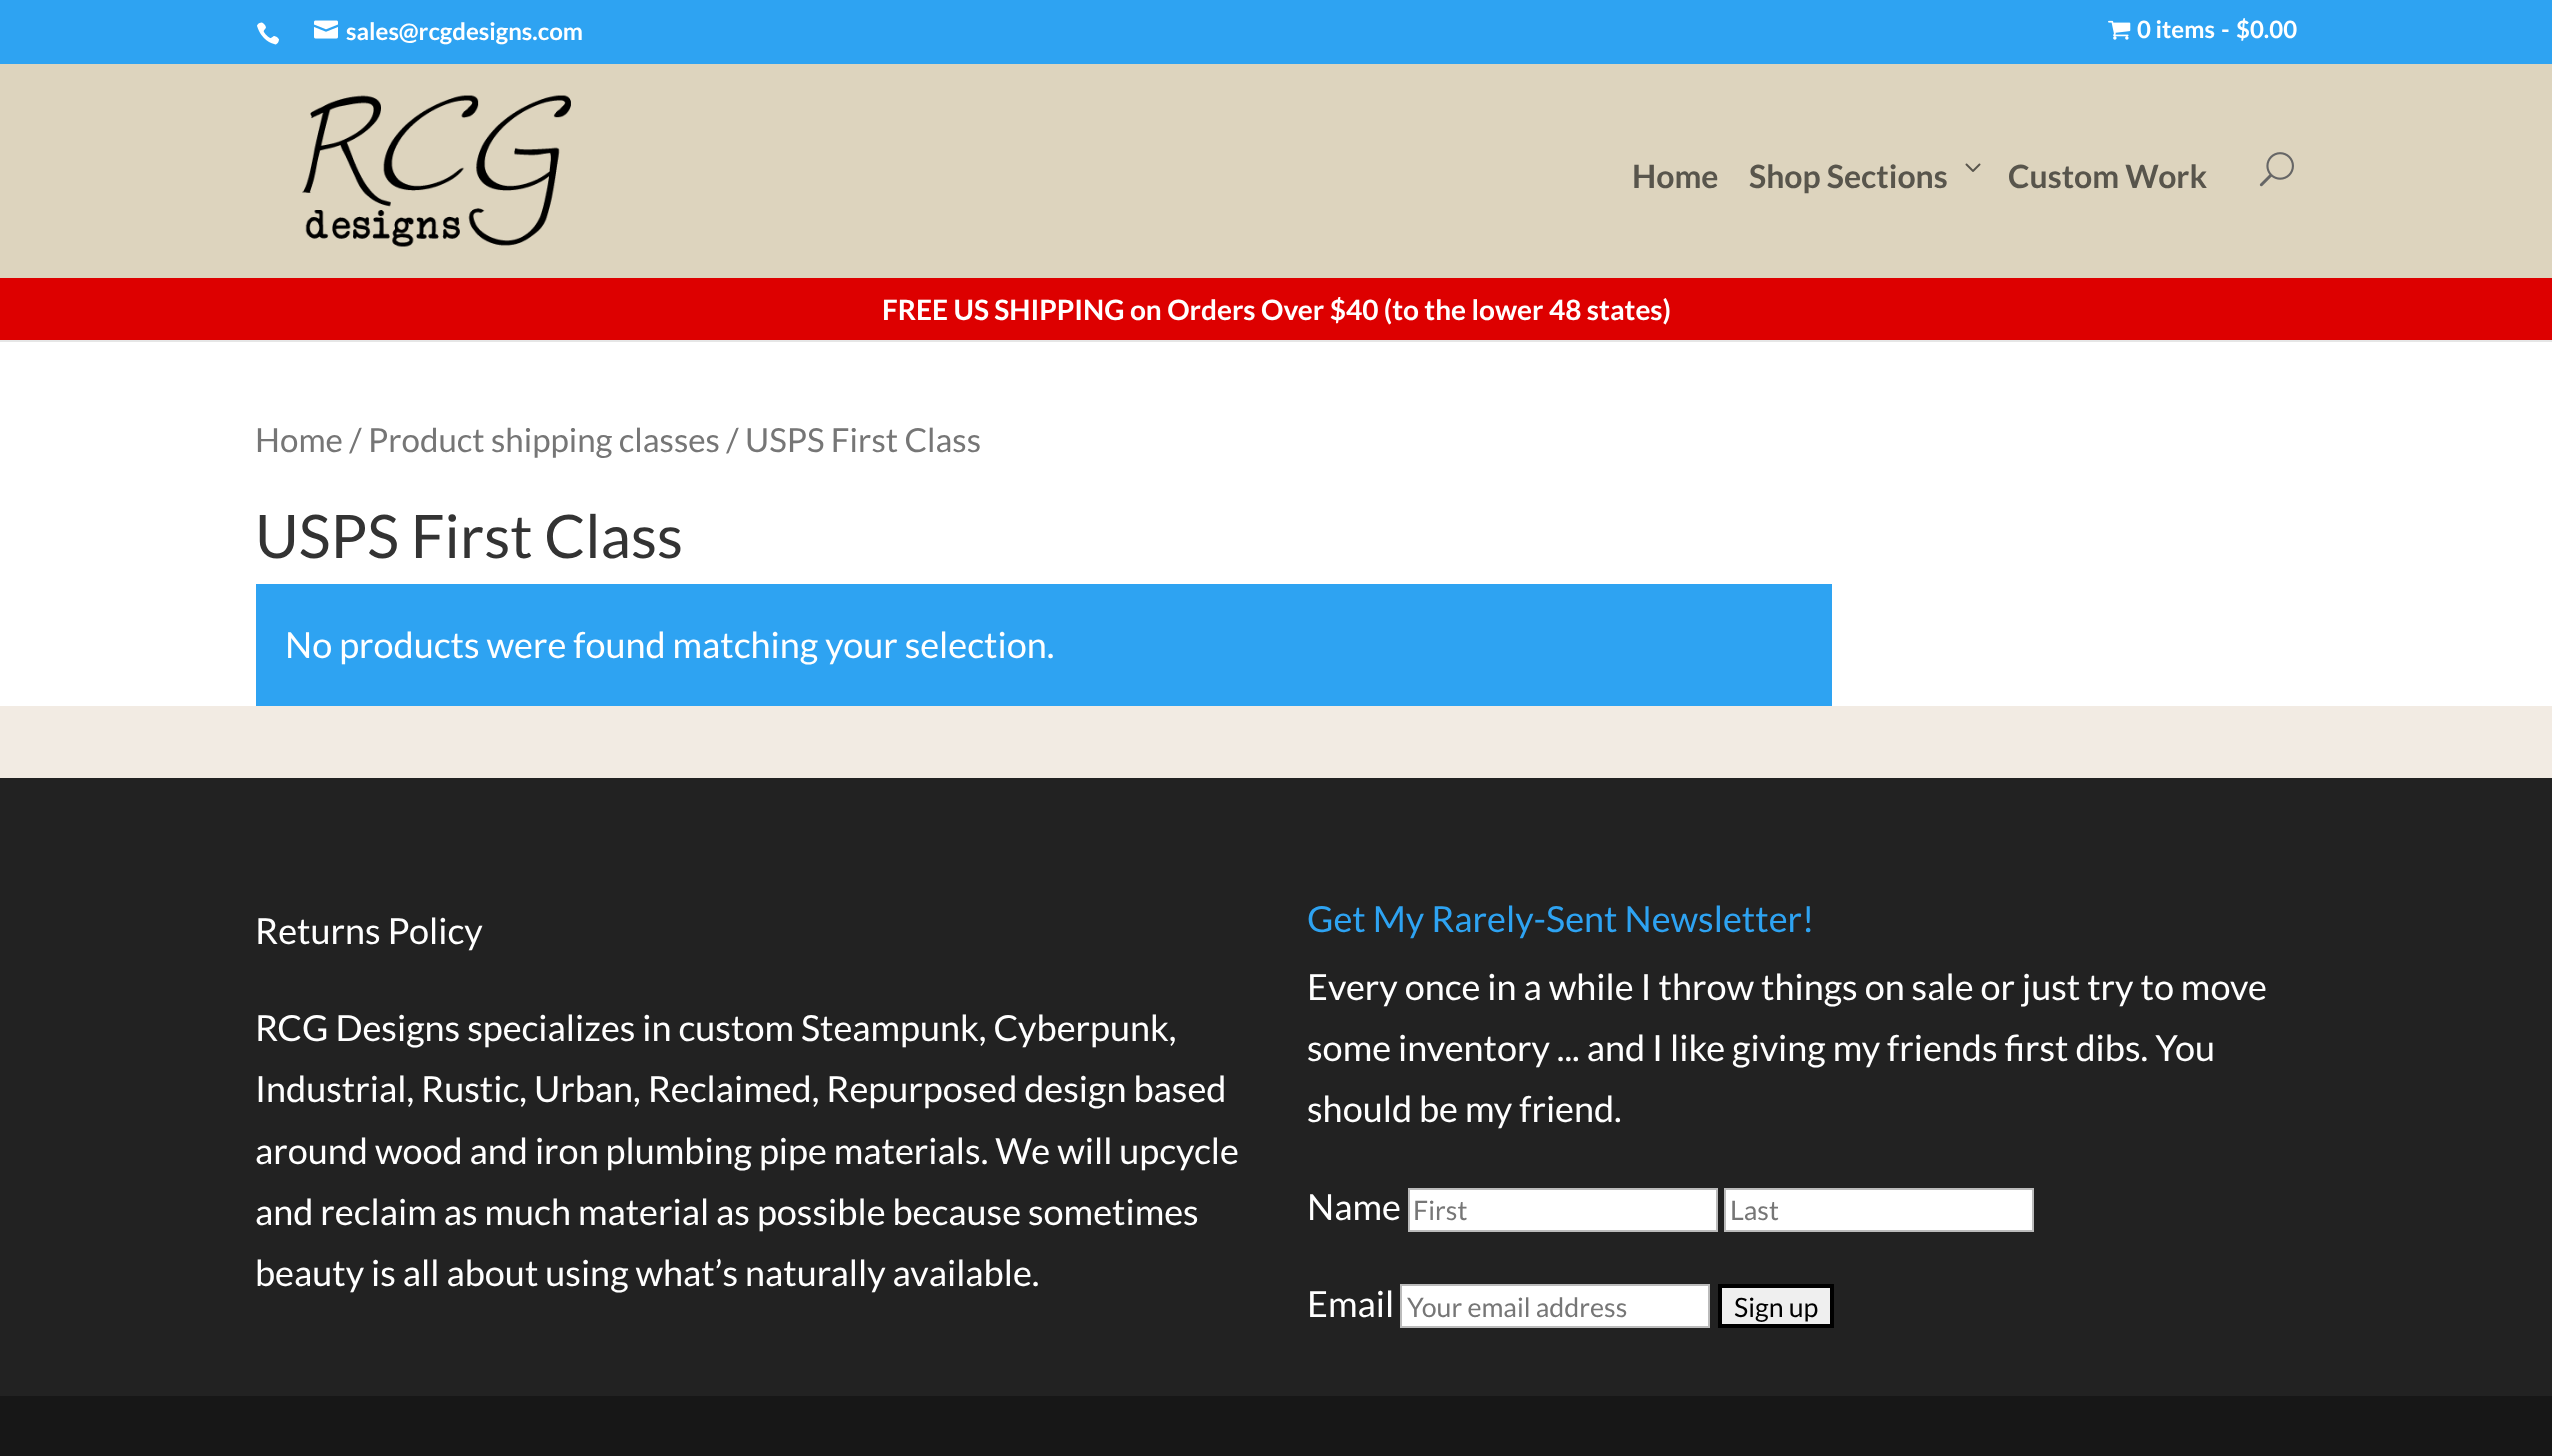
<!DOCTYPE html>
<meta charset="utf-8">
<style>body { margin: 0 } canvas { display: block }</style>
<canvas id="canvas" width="2552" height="1456"></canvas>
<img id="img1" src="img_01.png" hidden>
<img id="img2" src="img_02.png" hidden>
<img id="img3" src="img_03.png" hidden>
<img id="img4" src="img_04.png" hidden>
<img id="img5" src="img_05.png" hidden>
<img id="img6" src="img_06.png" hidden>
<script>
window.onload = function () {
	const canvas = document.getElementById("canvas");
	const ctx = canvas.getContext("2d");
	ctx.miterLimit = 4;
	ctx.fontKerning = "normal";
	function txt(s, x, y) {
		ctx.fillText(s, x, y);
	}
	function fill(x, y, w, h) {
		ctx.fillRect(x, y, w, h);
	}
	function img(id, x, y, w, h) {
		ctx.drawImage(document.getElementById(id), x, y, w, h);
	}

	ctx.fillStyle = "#F2EBE3";
	fill(0, 0, 2552, 1456);
	ctx.fillStyle = "#2EA3F2";
	fill(0, 0, 2552, 64);
	img("img1", 257, 22, 22, 23);
	img("img2", 314, 20, 24, 19);
	img("img3", 2108, 20, 23, 20);
	ctx.fillStyle = "#E6E6E6";
	fill(0, 340, 2552, 2);
	ctx.fillStyle = "#DDD4BE";
	fill(0, 64, 2552, 214);
	img("img4", 302, 95, 269, 152);
	img("img5", 1965, 163, 16, 9);
	img("img6", 2259, 152, 35, 35);
	ctx.fillStyle = "#DD0000";
	fill(0, 278, 2552, 62);
	ctx.fillStyle = "#FFFFFF";
	fill(0, 342, 2552, 364);
	ctx.fillStyle = "#2EA3F2";
	fill(256, 584, 1576, 122);
	ctx.fillStyle = "#222222";
	fill(0, 778, 2552, 618);
	ctx.fillStyle = "#FFFFFF";
	ctx.beginPath();
	ctx.rect(1409, 1189, 308, 42);
	ctx.fill();
	ctx.strokeStyle = "#BBBBBB";
	ctx.lineWidth = 2;
	ctx.stroke();
	ctx.beginPath();
	ctx.rect(1725, 1189, 308, 42);
	ctx.fill();
	ctx.stroke();
	ctx.beginPath();
	ctx.rect(1401, 1285, 308, 42);
	ctx.fill();
	ctx.stroke();
	ctx.fillStyle = "#EFEFEF";
	ctx.beginPath();
	ctx.rect(1720, 1286, 112, 40);
	ctx.fill();
	ctx.strokeStyle = "#000000";
	ctx.lineWidth = 4;
	ctx.stroke();
	ctx.fillStyle = "#171717";
	fill(0, 1396, 2552, 60);
	ctx.font = "bold 24px Lato";
	ctx.fillStyle = "#FFFFFF";
	txt("sales@rcgdesigns.com", 346, 40);
	txt("0 items", 2137, 38);
	txt("-", 2221, 38);
	txt("$0.00", 2236, 38);
	ctx.font = "bold 32px Lato";
	ctx.fillStyle = "#58554C";
	txt("Home", 1632, 188);
	txt("Shop Sections", 1749, 188);
	txt("Custom Work", 2008, 188);
	ctx.font = "bold 28px Lato";
	ctx.fillStyle = "#FFFFFF";
	txt("FREE US SHIPPING on Orders Over $40 (to the lower 48 states)", 882, 320);
	ctx.font = "33.1px Lato";
	ctx.fillStyle = "#767676";
	txt("Home / Product shipping classes / USPS First Class", 255, 452);
	ctx.font = "60px Lato";
	ctx.fillStyle = "#333333";
	txt("USPS First Class", 255, 558);
	ctx.font = "36px Lato";
	ctx.fillStyle = "#FFFFFF";
	txt("No products were found matching your selection.", 285, 658);
	txt("Returns Policy", 255, 944);
	txt("RCG Designs specializes in custom Steampunk, Cyberpunk,", 255, 1041);
	txt("Industrial, Rustic, Urban, Reclaimed, Repurposed design based", 255, 1102);
	txt("around wood and iron plumbing pipe materials. We will upcycle", 255, 1164);
	txt("and reclaim as much material as possible because sometimes", 255, 1225);
	txt("beauty is all about using what’s naturally available.", 255, 1286);
	ctx.fillStyle = "#2EA3F2";
	txt("Get My Rarely-Sent Newsletter!", 1307, 932);
	ctx.fillStyle = "#FFFFFF";
	txt("Every once in a while I throw things on sale or just try to move", 1307, 1000);
	txt("some inventory ... and I like giving my friends first dibs. You", 1307, 1061);
	txt("should be my friend.", 1307, 1122);
	txt("Name", 1307, 1220);
	ctx.font = "26.75px Lato";
	ctx.fillStyle = "#767676";
	txt("First", 1413, 1220);
	txt("Last", 1730, 1220);
	ctx.font = "36px Lato";
	ctx.fillStyle = "#FFFFFF";
	txt("Email", 1307, 1317);
	ctx.font = "26.75px Lato";
	ctx.fillStyle = "#767676";
	txt("Your email address", 1407, 1317);
	ctx.fillStyle = "#000000";
	txt("Sign up", 1734, 1317);
};
</script>
